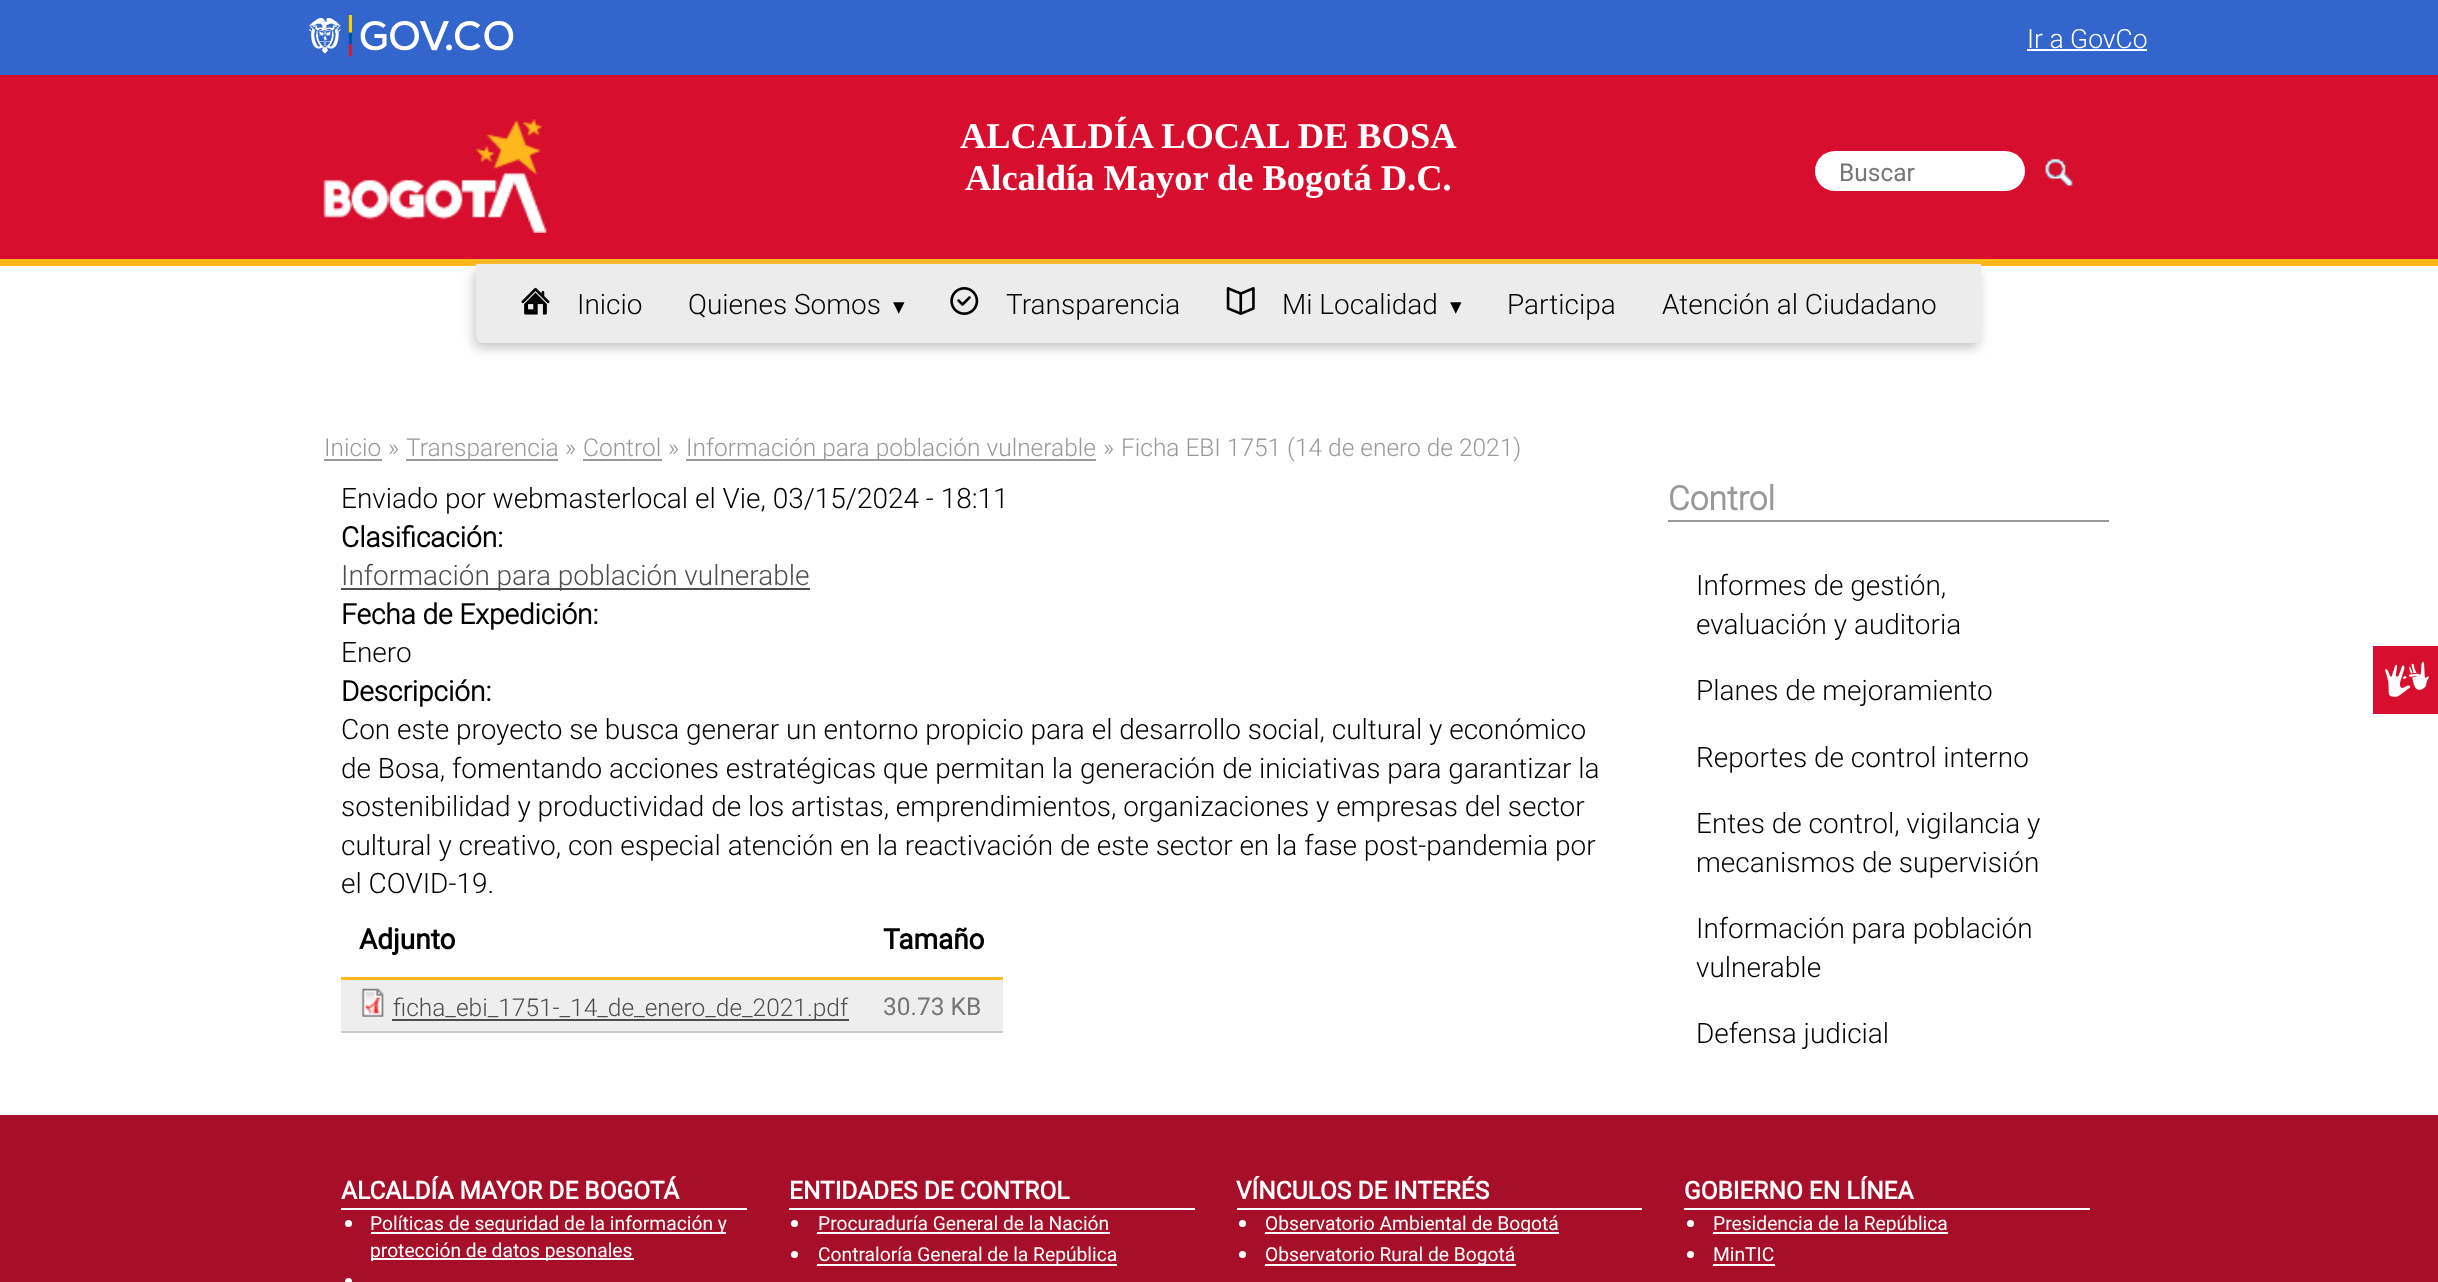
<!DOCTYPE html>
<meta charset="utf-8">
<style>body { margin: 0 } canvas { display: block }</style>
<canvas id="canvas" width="2438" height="1282"></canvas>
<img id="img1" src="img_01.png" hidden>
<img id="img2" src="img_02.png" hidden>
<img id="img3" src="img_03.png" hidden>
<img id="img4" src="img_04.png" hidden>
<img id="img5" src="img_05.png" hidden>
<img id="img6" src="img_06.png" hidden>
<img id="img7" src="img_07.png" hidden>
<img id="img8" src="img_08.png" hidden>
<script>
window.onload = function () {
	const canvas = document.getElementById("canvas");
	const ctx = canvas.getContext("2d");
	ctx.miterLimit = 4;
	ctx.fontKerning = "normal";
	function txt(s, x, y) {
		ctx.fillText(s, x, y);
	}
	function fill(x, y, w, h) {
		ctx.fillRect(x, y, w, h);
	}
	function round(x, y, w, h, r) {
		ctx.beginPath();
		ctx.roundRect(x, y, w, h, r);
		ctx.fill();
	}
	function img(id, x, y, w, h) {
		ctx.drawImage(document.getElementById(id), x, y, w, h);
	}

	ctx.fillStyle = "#FFFFFF";
	fill(0, 0, 2438, 1282);
	ctx.fillStyle = "#3366CC";
	fill(0, 0, 2438, 75);
	img("img1", 308, 15, 206, 42);
	ctx.fillStyle = "#FFFFFF";
	fill(2027, 49, 120, 2);
	ctx.fillStyle = "#D80E2F";
	fill(0, 75, 2438, 184);
	ctx.fillStyle = "#FFB71B";
	fill(0, 259, 2438, 7);
	img("img2", 323, 119, 224, 114);
	ctx.fillStyle = "#FFFFFF";
	round(1815, 151, 210, 40, 20);
	img("img3", 2045, 158, 28, 28);
	ctx.fillStyle = "#C5C5C5";
	ctx.filter = "blur(6px)";
	ctx.beginPath();
	ctx.roundRect(474, 270, 1505, 78, 7);
	ctx.fill();
	ctx.filter = "none";
	ctx.fillStyle = "#ECECEC";
	ctx.beginPath();
	ctx.roundRect(476, 264, 1505, 79, [0, 0, 7, 7]);
	ctx.fill();
	img("img4", 521, 287, 29, 28);
	img("img5", 950, 287, 29, 28);
	img("img6", 1226, 287, 29, 28);
	ctx.fillStyle = "#999999";
	fill(324, 459, 58, 2);
	fill(406, 459, 152, 2);
	fill(583, 459, 79, 2);
	fill(686, 459, 410, 2);
	ctx.fillStyle = "#4D4D4D";
	fill(341, 588, 469, 2);
	ctx.fillStyle = "#FFB71B";
	fill(341, 977, 662, 3);
	ctx.fillStyle = "#EEEEEE";
	fill(341, 980, 662, 51);
	ctx.fillStyle = "#CCCCCC";
	fill(341, 1031, 662, 2);
	img("img7", 361, 988, 23, 29);
	ctx.fillStyle = "#4D4D4D";
	fill(392, 1019, 457, 2);
	ctx.fillStyle = "#999999";
	fill(1668, 520, 441, 2);
	ctx.fillStyle = "#A70F28";
	fill(0, 1115, 2438, 167);
	ctx.fillStyle = "#D80E2F";
	fill(2373, 646, 65, 68);
	img("img8", 2385, 662, 44, 35);
	ctx.fillStyle = "#FFFFFF";
	fill(341, 1208, 406, 2);
	ctx.beginPath();
	ctx.arc(348.5, 1223.5, 3.5, 0, Math.PI * 2);
	ctx.fill();
	fill(371, 1232, 355, 2);
	fill(371, 1258, 263, 2);
	ctx.beginPath();
	ctx.arc(348.5, 1281.5, 3.5, 0, Math.PI * 2);
	ctx.fill();
	fill(789, 1208, 406, 2);
	ctx.beginPath();
	ctx.arc(794.5, 1223.5, 3.5, 0, Math.PI * 2);
	ctx.fill();
	fill(817, 1232, 293, 2);
	ctx.beginPath();
	ctx.arc(794.5, 1254.5, 3.5, 0, Math.PI * 2);
	ctx.fill();
	fill(817, 1264, 300, 2);
	fill(1237, 1208, 405, 2);
	ctx.beginPath();
	ctx.arc(1242.5, 1223.5, 3.5, 0, Math.PI * 2);
	ctx.fill();
	fill(1265, 1232, 294, 2);
	ctx.beginPath();
	ctx.arc(1242.5, 1254.5, 3.5, 0, Math.PI * 2);
	ctx.fill();
	fill(1265, 1264, 251, 2);
	fill(1684, 1208, 406, 2);
	ctx.beginPath();
	ctx.arc(1690.5, 1223.5, 3.5, 0, Math.PI * 2);
	ctx.fill();
	fill(1713, 1232, 235, 2);
	ctx.beginPath();
	ctx.arc(1690.5, 1254.5, 3.5, 0, Math.PI * 2);
	ctx.fill();
	fill(1713, 1264, 62, 2);
	ctx.font = "300 26.5px Roboto";
	txt("Ir a GovCo", 2027, 48);
	ctx.font = "bold 36.4px Liberation Serif";
	txt("ALCALDÍA LOCAL DE BOSA", 960, 148);
	txt("Alcaldía Mayor de Bogotá D.C.", 965, 190);
	ctx.font = "24.5px Roboto";
	ctx.fillStyle = "#757575";
	txt("Buscar", 1839, 181);
	ctx.font = "300 28px Roboto";
	ctx.fillStyle = "#000000";
	txt("Inicio", 577, 314);
	txt("Quienes Somos", 688, 314);
	ctx.font = "23px DejaVu Sans";
	txt("▾", 893, 314);
	ctx.font = "300 28px Roboto";
	txt("Transparencia", 1006, 314);
	txt("Mi Localidad", 1282, 314);
	ctx.font = "23px DejaVu Sans";
	txt("▾", 1450, 314);
	ctx.font = "300 28px Roboto";
	txt("Participa", 1507, 314);
	txt("Atención al Ciudadano", 1662, 314);
	ctx.font = "300 24.5px Roboto";
	ctx.fillStyle = "#999999";
	txt("Inicio", 324, 456);
	txt("»", 388, 456);
	txt("Transparencia", 406, 456);
	txt("»", 565, 456);
	txt("Control", 583, 456);
	txt("»", 668, 456);
	txt("Información para población vulnerable", 686, 456);
	txt("»", 1103, 456);
	txt("Ficha EBI 1751 (14 de enero de 2021)", 1121, 456);
	ctx.font = "300 28px Roboto";
	ctx.fillStyle = "#000000";
	txt("Enviado por webmasterlocal el Vie, 03/15/2024 - 18:11", 341, 508);
	ctx.font = "bold 28px 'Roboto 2'";
	txt("Clasificación:", 341, 547);
	ctx.font = "300 28px Roboto";
	ctx.fillStyle = "#4D4D4D";
	txt("Información para población vulnerable", 341, 585);
	ctx.font = "bold 28px 'Roboto 2'";
	ctx.fillStyle = "#000000";
	txt("Fecha de Expedición:", 341, 624);
	ctx.font = "300 28px Roboto";
	txt("Enero", 341, 662);
	ctx.font = "bold 28px 'Roboto 2'";
	txt("Descripción:", 341, 701);
	ctx.font = "300 28px Roboto";
	txt("Con este proyecto se busca generar un entorno propicio para el desarrollo social, cultural y económico", 341, 739);
	txt("de Bosa, fomentando acciones estratégicas que permitan la generación de iniciativas para garantizar la", 341, 778);
	txt("sostenibilidad y productividad de los artistas, emprendimientos, organizaciones y empresas del sector", 341, 816);
	txt("cultural y creativo, con especial atención en la reactivación de este sector en la fase post-pandemia por", 341, 855);
	txt("el COVID-19.", 341, 893);
	ctx.font = "bold 28px Roboto";
	txt("Adjunto", 359, 949);
	txt("Tamaño", 883, 949);
	ctx.font = "300 24.5px Roboto";
	ctx.fillStyle = "#4D4D4D";
	txt("ficha_ebi_1751-_14_de_enero_de_2021.pdf", 393, 1016);
	ctx.font = "24.5px Roboto";
	ctx.fillStyle = "#757575";
	txt("30.73 KB", 883, 1015);
	ctx.font = "bold 33.5px 'Roboto 2'";
	ctx.fillStyle = "#999999";
	txt("Control", 1668, 510);
	ctx.font = "300 28px Roboto";
	ctx.fillStyle = "#000000";
	txt("Informes de gestión,", 1696, 595);
	txt("evaluación y auditoria", 1696, 634);
	txt("Planes de mejoramiento", 1696, 700);
	txt("Reportes de control interno", 1696, 767);
	txt("Entes de control, vigilancia y", 1696, 833);
	txt("mecanismos de supervisión", 1696, 872);
	txt("Información para población", 1696, 938);
	txt("vulnerable", 1696, 977);
	txt("Defensa judicial", 1696, 1043);
	ctx.font = "bold 24.5px Roboto";
	ctx.fillStyle = "#FFFFFF";
	txt("ALCALDÍA MAYOR DE BOGOTÁ", 341, 1199);
	ctx.font = "19.25px Roboto";
	txt("Políticas de seguridad de la información y", 370, 1230);
	txt("protección de datos pesonales", 370, 1257);
	ctx.font = "bold 24.5px Roboto";
	txt("ENTIDADES DE CONTROL", 789, 1199);
	ctx.font = "19.25px Roboto";
	txt("Procuraduría General de la Nación", 818, 1230);
	txt("Contraloría General de la República", 818, 1261);
	ctx.font = "bold 24.5px Roboto";
	txt("VÍNCULOS DE INTERÉS", 1236, 1199);
	ctx.font = "19.25px Roboto";
	txt("Observatorio Ambiental de Bogotá", 1265, 1230);
	txt("Observatorio Rural de Bogotá", 1265, 1261);
	ctx.font = "bold 24.5px Roboto";
	txt("GOBIERNO EN LÍNEA", 1684, 1199);
	ctx.font = "19.25px Roboto";
	txt("Presidencia de la República", 1713, 1230);
	txt("MinTIC", 1713, 1261);
};
</script>
